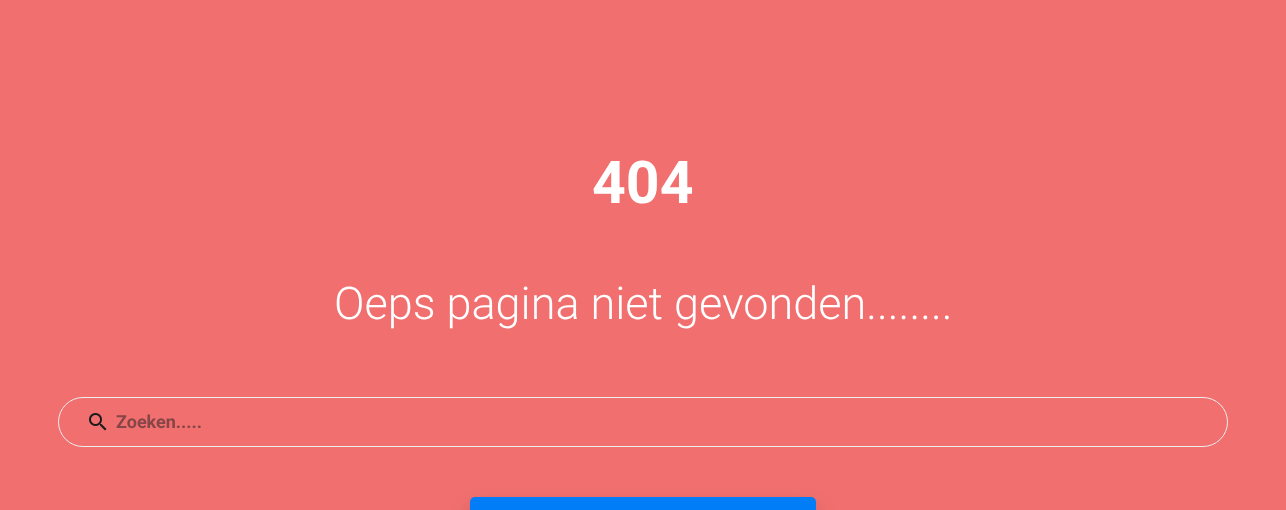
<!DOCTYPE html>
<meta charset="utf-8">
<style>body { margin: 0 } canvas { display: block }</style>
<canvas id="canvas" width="1286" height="510"></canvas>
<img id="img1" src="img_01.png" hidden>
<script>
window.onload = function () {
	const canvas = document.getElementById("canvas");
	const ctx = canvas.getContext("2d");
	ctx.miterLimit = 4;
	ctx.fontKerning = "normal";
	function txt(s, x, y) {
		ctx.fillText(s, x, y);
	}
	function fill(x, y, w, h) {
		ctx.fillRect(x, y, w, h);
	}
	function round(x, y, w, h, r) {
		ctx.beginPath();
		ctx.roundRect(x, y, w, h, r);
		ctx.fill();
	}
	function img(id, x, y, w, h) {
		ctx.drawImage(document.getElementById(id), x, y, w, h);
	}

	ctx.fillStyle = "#F16F6F";
	fill(0, 0, 1286, 510);
	ctx.beginPath();
	ctx.roundRect(58.5, 397.5, 1169, 49, 24.5);
	ctx.strokeStyle = "#EEEEEE";
	ctx.stroke();
	img("img1", 89, 413, 18, 18);
	ctx.fillStyle = "rgba(0, 0, 0, 0.15)";
	ctx.filter = "blur(10px)";
	ctx.beginPath();
	ctx.roundRect(470, 507, 346, 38, 5);
	ctx.fill();
	ctx.filter = "none";
	ctx.fillStyle = "#007DF7";
	round(470, 497, 346, 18, 5);
	ctx.font = "bold 59px Roboto";
	ctx.fillStyle = "#FFFFFF";
	txt("404", 592, 203);
	ctx.font = "300 45px Roboto";
	txt("Oeps pagina niet gevonden........", 334, 319);
	ctx.font = "bold 18px Roboto";
	ctx.fillStyle = "#864546";
	txt("Zoeken.....", 116, 428);
};
</script>
